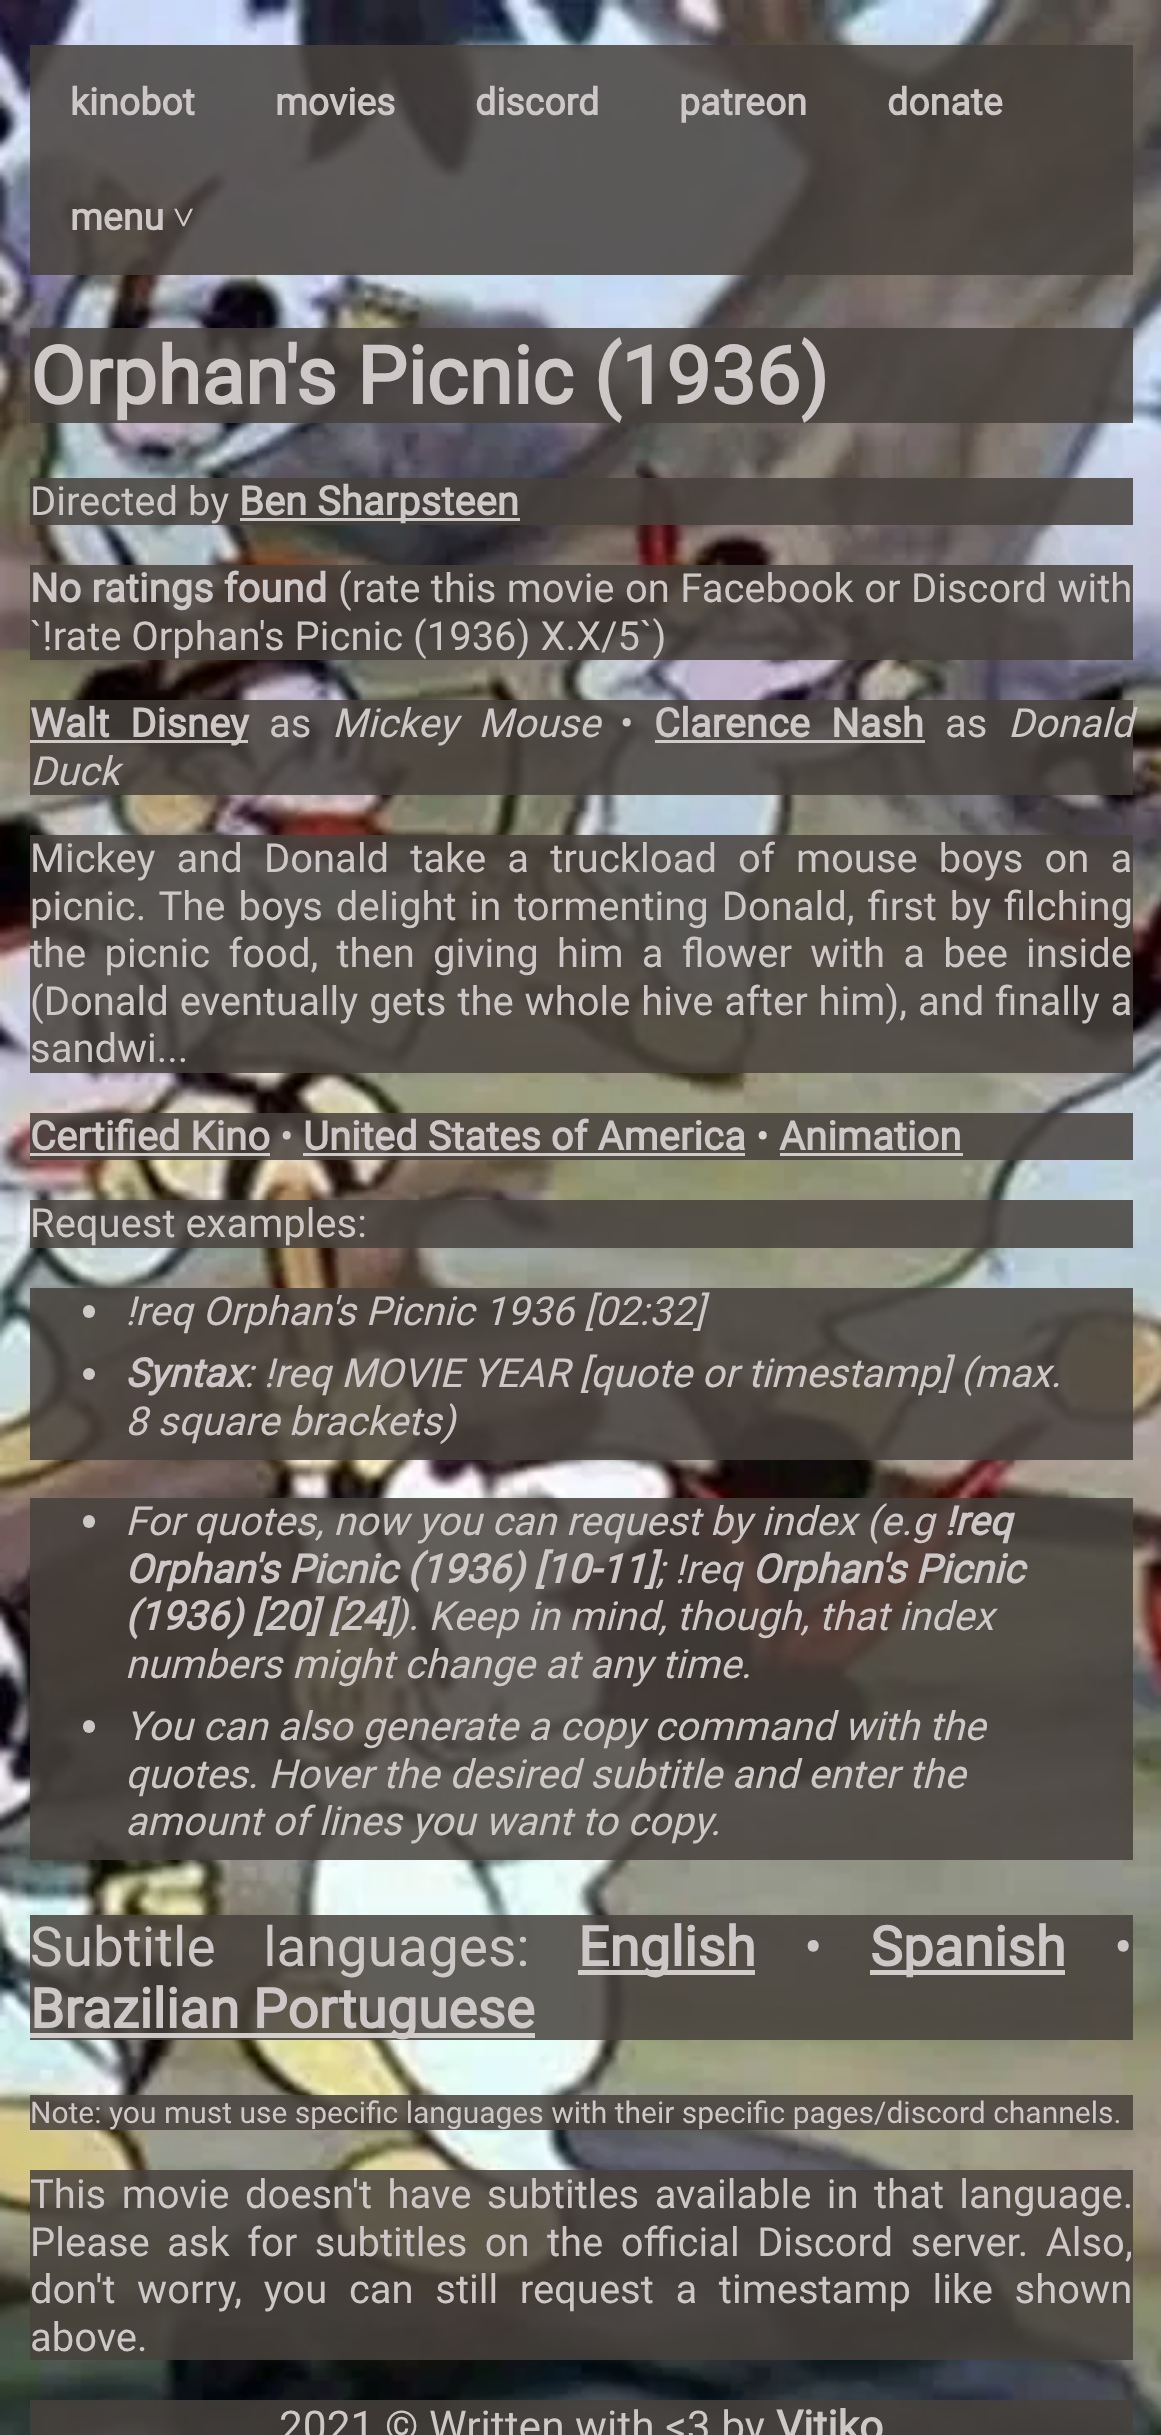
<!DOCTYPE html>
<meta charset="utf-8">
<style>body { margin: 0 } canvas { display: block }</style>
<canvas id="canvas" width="1161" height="2435"></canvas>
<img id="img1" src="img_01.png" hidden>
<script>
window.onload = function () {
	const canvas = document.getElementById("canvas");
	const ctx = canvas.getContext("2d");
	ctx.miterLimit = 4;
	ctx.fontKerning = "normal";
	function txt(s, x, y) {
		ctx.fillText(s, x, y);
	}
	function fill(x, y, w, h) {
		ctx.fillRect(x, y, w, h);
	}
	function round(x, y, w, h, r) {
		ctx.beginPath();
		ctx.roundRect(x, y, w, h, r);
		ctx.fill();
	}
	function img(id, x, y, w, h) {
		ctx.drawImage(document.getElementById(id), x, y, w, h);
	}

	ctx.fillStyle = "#FFFFFF";
	fill(0, 0, 1161, 2435);
	img("img1", 0, 0, 1161, 2435);
	ctx.fillStyle = "rgba(70, 65, 60, 0.85)";
	fill(30, 45, 1103, 230);
	fill(30, 328, 1103, 95);
	fill(30, 478, 1103, 47);
	ctx.fillStyle = "rgba(230, 226, 225, 0.85)";
	fill(240, 518, 280, 3);
	ctx.fillStyle = "rgba(70, 65, 60, 0.85)";
	fill(30, 565, 1103, 95);
	fill(30, 700, 1103, 95);
	ctx.fillStyle = "rgba(230, 226, 225, 0.85)";
	fill(30, 740, 218, 3);
	fill(655, 740, 270, 3);
	ctx.fillStyle = "rgba(70, 65, 60, 0.85)";
	fill(30, 835, 1103, 238);
	fill(30, 1113, 1103, 47);
	ctx.fillStyle = "rgba(230, 226, 225, 0.85)";
	fill(30, 1153, 240, 3);
	fill(303, 1153, 442, 3);
	fill(780, 1153, 183, 3);
	ctx.fillStyle = "rgba(70, 65, 60, 0.85)";
	fill(30, 1200, 1103, 48);
	fill(30, 1288, 1103, 172);
	ctx.fillStyle = "#CDC9C7";
	round(83, 1305, 12, 13, 6);
	ctx.fillStyle = "rgba(227, 223, 222, 0.85)";
	ctx.beginPath();
	ctx.arc(89, 1374, 6, 0, Math.PI * 2);
	ctx.fill();
	ctx.fillStyle = "rgba(70, 65, 60, 0.85)";
	fill(30, 1498, 1103, 362);
	ctx.fillStyle = "#CCC8C6";
	round(83, 1515, 12, 13, 6);
	ctx.fillStyle = "rgba(227, 223, 222, 0.85)";
	round(83, 1720, 12, 13, 6);
	ctx.fillStyle = "rgba(70, 65, 60, 0.85)";
	fill(30, 1915, 1103, 125);
	ctx.fillStyle = "rgba(230, 226, 225, 0.85)";
	fill(578, 1970, 177, 5);
	ctx.fillStyle = "#D0CCCA";
	fill(870, 1970, 195, 5);
	ctx.fillStyle = "rgba(230, 226, 225, 0.85)";
	fill(30, 2033, 505, 5);
	ctx.fillStyle = "rgba(70, 65, 60, 0.85)";
	fill(30, 2095, 1103, 35);
	fill(30, 2170, 1103, 190);
	fill(30, 2400, 1103, 35);
	ctx.font = "bold 37.5px Roboto";
	ctx.fillStyle = "#CDC8C7";
	txt("kinobot", 70, 115);
	txt("movies", 275, 115);
	txt("discord", 475, 115);
	txt("patreon", 679, 115);
	txt("donate", 887, 115);
	txt("menu", 70, 230);
	ctx.font = "bold 37.5px Liberation Serif";
	txt("˅", 173, 230);
	ctx.font = "bold 80px Roboto";
	txt("Orphan's Picnic (1936)", 30, 404);
	ctx.font = "40px Roboto";
	txt("Directed by", 30, 515);
	ctx.font = "bold 40px Roboto";
	txt("Ben Sharpsteen", 239, 515);
	txt("No ratings found", 30, 602);
	ctx.wordSpacing = "0.5px";
	ctx.font = "40px Roboto";
	txt("(rate this movie on Facebook or Discord with", 338, 602);
	ctx.wordSpacing = "0px";
	txt("`!rate Orphan's Picnic (1936) X.X/5`)", 30, 650);
	ctx.wordSpacing = "11px";
	ctx.font = "bold 40px Roboto";
	txt("Walt Disney", 30, 737);
	ctx.wordSpacing = "0px";
	ctx.font = "40px Roboto";
	txt("as", 269, 737);
	ctx.wordSpacing = "11px";
	ctx.font = "italic 40px Roboto";
	txt("Mickey Mouse", 332, 737);
	ctx.wordSpacing = "0px";
	ctx.font = "40px Roboto";
	txt("•", 620, 737);
	ctx.wordSpacing = "11px";
	ctx.font = "bold 40px Roboto";
	txt("Clarence Nash", 654, 737);
	ctx.wordSpacing = "0px";
	ctx.font = "40px Roboto";
	txt("as", 945, 737);
	ctx.font = "italic 40px Roboto";
	txt("Donald", 1008, 737);
	txt("Duck", 30, 785);
	ctx.wordSpacing = "11.25px";
	ctx.font = "40px Roboto";
	txt("Mickey and Donald take a truckload of mouse boys on a", 30, 872);
	ctx.wordSpacing = "3px";
	txt("picnic. The boys delight in tormenting Donald, first by filching", 30, 920);
	ctx.wordSpacing = "8.25px";
	txt("the picnic food, then giving him a flower with a bee inside", 30, 967);
	ctx.wordSpacing = "1px";
	txt("(Donald eventually gets the whole hive after him), and finally a", 30, 1015);
	ctx.wordSpacing = "0px";
	txt("sandwi...", 30, 1062);
	ctx.font = "bold 40px Roboto";
	txt("Certified Kino", 30, 1150);
	ctx.font = "40px Roboto";
	txt("•", 280, 1150);
	ctx.font = "bold 40px Roboto";
	txt("United States of America", 303, 1150);
	ctx.font = "40px Roboto";
	ctx.fillStyle = "#D7D4CF";
	txt("•", 756, 1150);
	ctx.font = "bold 40px Roboto";
	ctx.fillStyle = "#CDC8C7";
	txt("Animation", 779, 1150);
	ctx.font = "40px Roboto";
	txt("Request examples:", 30, 1237);
	ctx.font = "italic 40px Roboto";
	txt("!req Orphan's Picnic 1936 [02:32]", 125, 1325);
	ctx.font = "italic bold 40px Roboto";
	txt("Syntax", 125, 1387);
	ctx.font = "italic 40px Roboto";
	txt(": !req MOVIE YEAR [quote or timestamp] (max.", 244, 1387);
	txt("8 square brackets)", 125, 1435);
	txt("For quotes, now you can request by index (e.g", 125, 1535);
	ctx.font = "italic bold 40px Roboto";
	txt("!req", 944, 1535);
	txt("Orphan's Picnic (1936) [10-11]", 125, 1583);
	ctx.font = "italic 40px Roboto";
	txt("; !req", 656, 1583);
	ctx.font = "italic bold 40px Roboto";
	txt("Orphan's Picnic", 752, 1583);
	txt("(1936) [20] [24]", 125, 1630);
	ctx.font = "italic 40px Roboto";
	txt("). Keep in mind, though, that index", 394, 1630);
	txt("numbers might change at any time.", 125, 1678);
	txt("You can also generate a copy command with the", 125, 1740);
	txt("quotes. Hover the desired subtitle and enter the", 125, 1788);
	txt("amount of lines you want to copy.", 125, 1835);
	ctx.wordSpacing = "34px";
	ctx.font = "55px Roboto";
	txt("Subtitle languages:", 30, 1966);
	ctx.wordSpacing = "0px";
	ctx.font = "bold 55px Roboto";
	txt("English", 578, 1966);
	ctx.font = "55px Roboto";
	txt("•", 804, 1966);
	ctx.font = "bold 55px Roboto";
	txt("Spanish", 870, 1966);
	ctx.font = "55px Roboto";
	txt("•", 1114, 1966);
	ctx.font = "bold 55px Roboto";
	txt("Brazilian Portuguese", 30, 2028);
	ctx.font = "30px Roboto";
	txt("Note: you must use specific languages with their specific pages/discord channels.", 30, 2123);
	ctx.wordSpacing = "5.5px";
	ctx.font = "40px Roboto";
	txt("This movie doesn't have subtitles available in that language.", 30, 2208);
	ctx.wordSpacing = "7.5px";
	txt("Please ask for subtitles on the official Discord server. Also,", 30, 2256);
	ctx.wordSpacing = "11.75px";
	txt("don't worry, you can still request a timestamp like shown", 30, 2303);
	ctx.wordSpacing = "0px";
	txt("above.", 30, 2351);
	ctx.font = "42.5px Roboto";
	txt("2021 © Written with <3 by", 279, 2441);
	ctx.font = "bold 42.5px Roboto";
	txt("Vitiko", 776, 2441);
};
</script>
